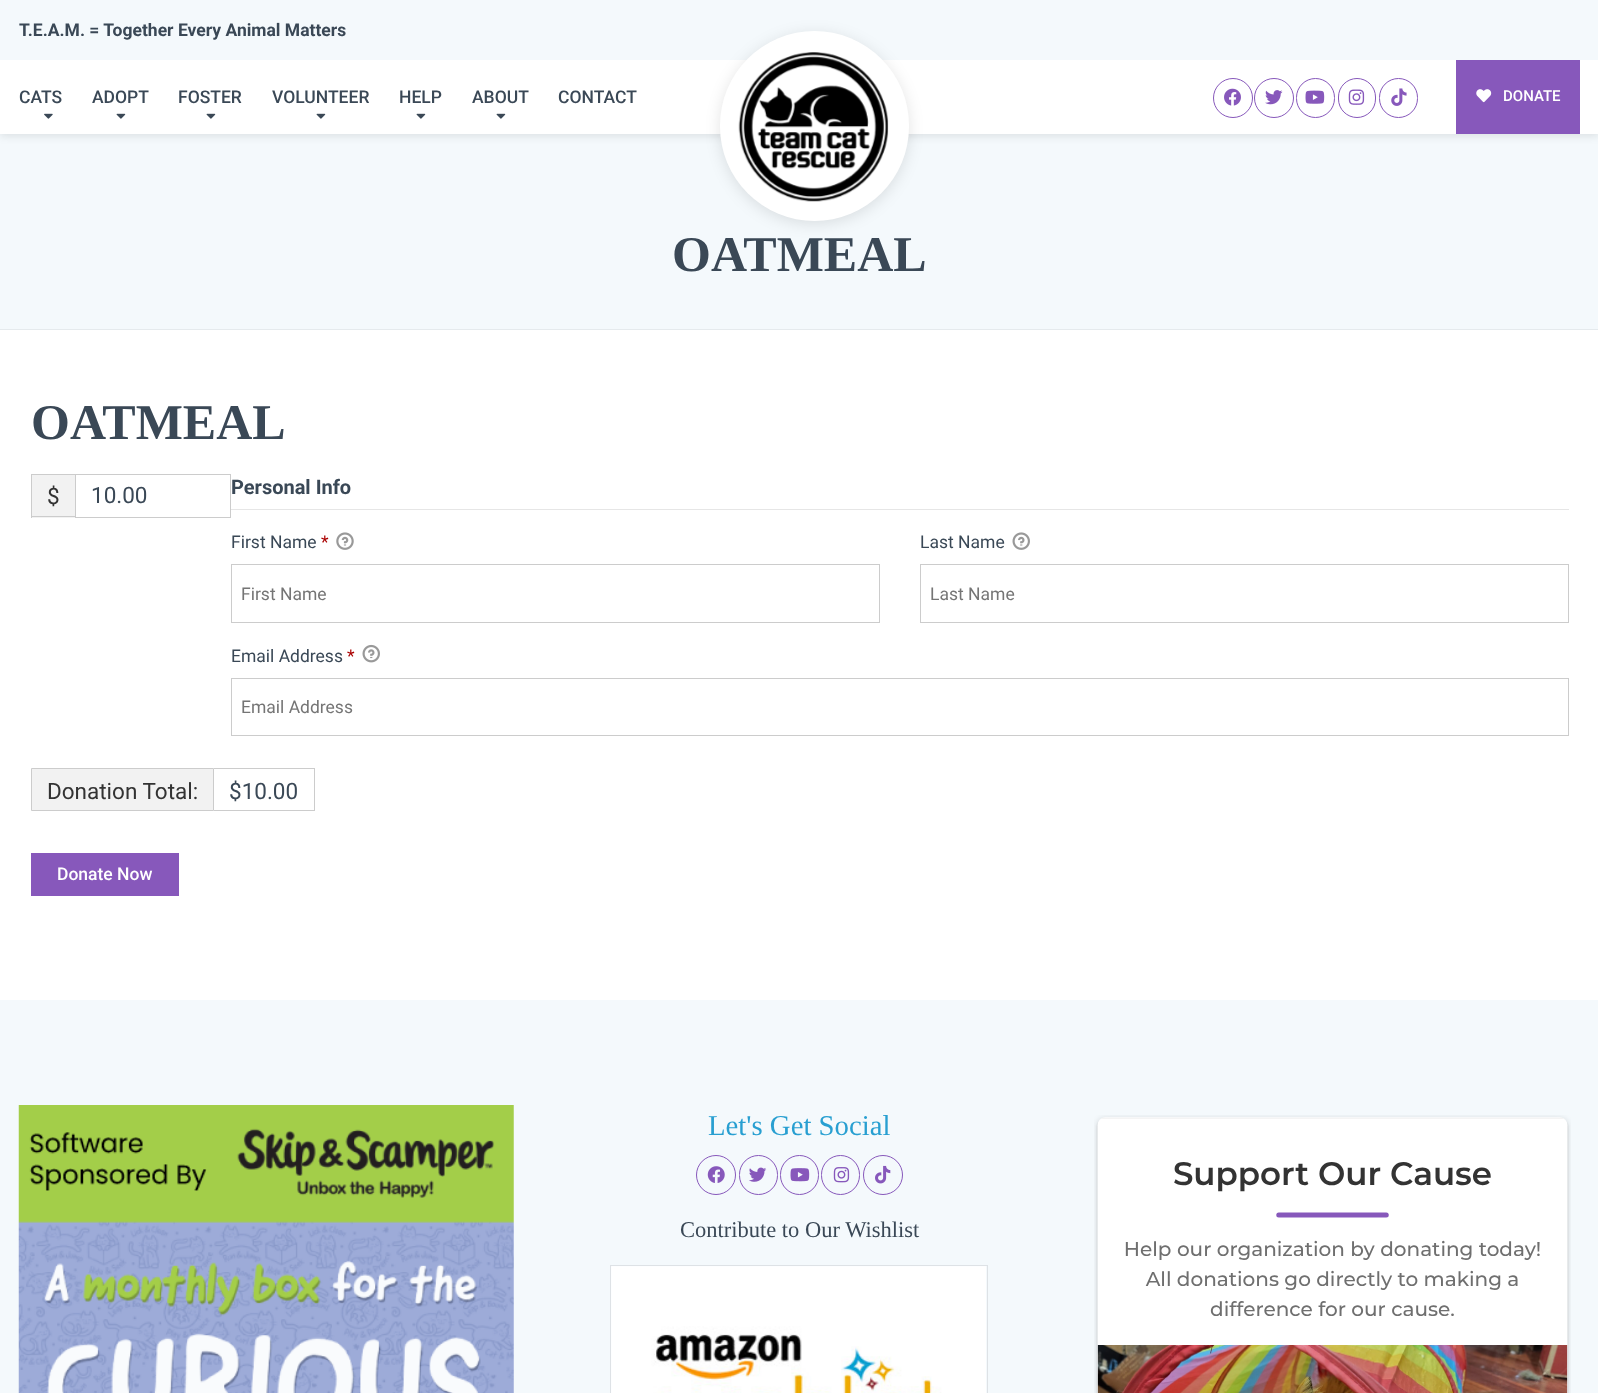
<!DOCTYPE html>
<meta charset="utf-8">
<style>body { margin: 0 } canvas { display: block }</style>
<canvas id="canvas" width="1598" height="1393"></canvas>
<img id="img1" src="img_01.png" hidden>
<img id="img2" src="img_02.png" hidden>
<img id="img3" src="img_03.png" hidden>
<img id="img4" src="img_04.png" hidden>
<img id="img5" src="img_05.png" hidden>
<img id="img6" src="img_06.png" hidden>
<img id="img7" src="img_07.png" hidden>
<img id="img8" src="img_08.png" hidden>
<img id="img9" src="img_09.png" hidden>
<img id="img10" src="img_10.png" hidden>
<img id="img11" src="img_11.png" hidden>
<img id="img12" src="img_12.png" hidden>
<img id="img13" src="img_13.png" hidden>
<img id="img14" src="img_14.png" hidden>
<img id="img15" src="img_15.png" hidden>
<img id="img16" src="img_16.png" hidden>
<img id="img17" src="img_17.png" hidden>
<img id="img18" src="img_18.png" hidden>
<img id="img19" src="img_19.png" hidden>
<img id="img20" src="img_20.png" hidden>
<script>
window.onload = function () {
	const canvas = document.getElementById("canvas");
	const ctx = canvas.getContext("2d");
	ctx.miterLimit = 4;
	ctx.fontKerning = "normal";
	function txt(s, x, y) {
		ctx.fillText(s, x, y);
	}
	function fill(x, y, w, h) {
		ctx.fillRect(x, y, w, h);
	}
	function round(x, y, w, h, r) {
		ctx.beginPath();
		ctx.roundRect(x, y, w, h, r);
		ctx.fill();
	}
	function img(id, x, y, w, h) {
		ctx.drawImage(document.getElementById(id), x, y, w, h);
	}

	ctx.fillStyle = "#FFFFFF";
	fill(0, 0, 1598, 1393);
	ctx.fillStyle = "#F4F9FC";
	fill(0, 134, 1598, 195);
	ctx.fillStyle = "rgba(0, 0, 0, 0.1)";
	ctx.filter = "blur(4px)";
	ctx.beginPath();
	ctx.rect(0, 3, 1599, 133);
	ctx.fill();
	ctx.filter = "none";
	ctx.fillStyle = "#F4F9FC";
	fill(0, 0, 1598, 60);
	ctx.fillStyle = "#FFFFFF";
	fill(0, 60, 1598, 74);
	img("img1", 44, 113, 9, 6);
	img("img2", 116, 113, 10, 6);
	img("img2", 206, 113, 10, 6);
	img("img2", 316, 113, 10, 6);
	img("img2", 416, 113, 10, 6);
	img("img2", 496, 113, 10, 6);
	ctx.fillStyle = "rgba(0, 0, 0, 0.11)";
	ctx.filter = "blur(7.5px)";
	ctx.beginPath();
	ctx.roundRect(720, 34, 189, 190, 94.5);
	ctx.fill();
	ctx.filter = "none";
	ctx.fillStyle = "#FFFFFF";
	round(720, 31, 189, 190, 94.5);
	img("img3", 738, 52, 151, 150);
	ctx.beginPath();
	ctx.arc(1233, 98, 19.5, 0, Math.PI * 2);
	ctx.strokeStyle = "#8758BB";
	ctx.stroke();
	img("img4", 1224, 88, 17, 18);
	ctx.beginPath();
	ctx.arc(1274, 98, 19.5, 0, Math.PI * 2);
	ctx.stroke();
	img("img5", 1265, 90, 18, 15);
	ctx.beginPath();
	ctx.roundRect(1296.5, 78.5, 38, 39, 19);
	ctx.stroke();
	img("img6", 1305, 90, 20, 14);
	ctx.beginPath();
	ctx.roundRect(1338.5, 78.5, 37, 39, 18.5);
	ctx.stroke();
	img("img7", 1348, 89, 17, 16);
	ctx.beginPath();
	ctx.roundRect(1379.5, 78.5, 38, 39, 19);
	ctx.stroke();
	img("img8", 1391, 88, 16, 18);
	ctx.fillStyle = "#8758BB";
	fill(1456, 60, 124, 74);
	img("img9", 1476, 89, 16, 14);
	ctx.fillStyle = "#E5EAED";
	fill(0, 329, 1598, 1);
	ctx.fillStyle = "#E6E6E6";
	fill(231, 509, 1338, 1);
	img("img10", 336, 532, 18, 18);
	ctx.strokeStyle = "#CCCCCC";
	ctx.strokeRect(231.5, 564.5, 648, 58);
	img("img11", 1012, 532, 18, 18);
	ctx.strokeRect(920.5, 564.5, 648, 58);
	img("img12", 362, 644, 18, 19);
	ctx.strokeRect(231.5, 678.5, 1337, 57);
	ctx.fillStyle = "#F2F2F2";
	ctx.beginPath();
	ctx.rect(31.5, 768.5, 182, 42);
	ctx.fill();
	ctx.stroke();
	ctx.fillStyle = "#CCCCCC";
	fill(214, 768, 101, 1);
	fill(314, 768, 1, 43);
	fill(214, 810, 101, 1);
	ctx.fillStyle = "#8758BB";
	fill(31, 853, 148, 43);
	ctx.fillStyle = "#F2F2F2";
	fill(32, 475, 43, 43);
	ctx.fillStyle = "#CCCCCC";
	fill(31, 474, 44, 1);
	fill(31, 516, 44, 1);
	fill(31, 474, 1, 44);
	ctx.strokeRect(75.5, 474.5, 155, 43);
	ctx.fillStyle = "#F4F9FC";
	fill(0, 1000, 1598, 393);
	img("img13", 18, 1105, 496, 288);
	ctx.beginPath();
	ctx.arc(716, 1175, 19.5, 0, Math.PI * 2);
	ctx.strokeStyle = "#8758BB";
	ctx.stroke();
	img("img14", 707, 1166, 18, 17);
	ctx.beginPath();
	ctx.roundRect(739.5, 1155.5, 38, 39, 19);
	ctx.stroke();
	img("img15", 749, 1167, 18, 15);
	ctx.beginPath();
	ctx.roundRect(780.5, 1155.5, 38, 39, 19);
	ctx.stroke();
	img("img16", 790, 1168, 20, 14);
	ctx.beginPath();
	ctx.roundRect(821.5, 1155.5, 38, 39, 19);
	ctx.stroke();
	img("img17", 833, 1167, 17, 16);
	ctx.beginPath();
	ctx.arc(883, 1175, 19.5, 0, Math.PI * 2);
	ctx.stroke();
	img("img18", 875, 1165, 16, 19);
	ctx.strokeStyle = "#DEE2E6";
	ctx.strokeRect(610.5, 1265.5, 377, 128);
	img("img19", 611, 1266, 375, 127);
	img("img20", 1094, 1115, 477, 278);
	ctx.font = "bold 17.5px Roboto";
	ctx.fillStyle = "#3A4856";
	txt("T.E.A.M. = Together Every Animal Matters", 19, 36);
	ctx.font = "500 17.5px Roboto";
	txt("CATS", 19, 103);
	txt("ADOPT", 92, 103);
	txt("FOSTER", 178, 103);
	txt("VOLUNTEER", 272, 103);
	txt("HELP", 399, 103);
	txt("ABOUT", 472, 103);
	txt("CONTACT", 558, 103);
	ctx.font = "500 15px Roboto";
	ctx.fillStyle = "#FFFFFF";
	txt("DONATE", 1503, 101);
	ctx.font = "bold 50px Liberation Serif";
	ctx.fillStyle = "#3A4856";
	txt("OATMEAL", 672, 271);
	txt("OATMEAL", 31, 439);
	ctx.font = "bold 20px Roboto";
	txt("Personal Info", 231, 494);
	ctx.font = "17.5px Roboto";
	txt("First Name", 231, 548);
	ctx.fillStyle = "#AA0000";
	txt("*", 321, 548);
	ctx.fillStyle = "#757575";
	txt("First Name", 241, 600);
	ctx.fillStyle = "#3A4856";
	txt("Last Name", 920, 548);
	ctx.fillStyle = "#757575";
	txt("Last Name", 930, 600);
	ctx.fillStyle = "#3A4856";
	txt("Email Address", 231, 662);
	ctx.fillStyle = "#AA0000";
	txt("*", 347, 662);
	ctx.fillStyle = "#757575";
	txt("Email Address", 241, 713);
	ctx.font = "22.5px Roboto";
	ctx.fillStyle = "#333333";
	txt("Donation Total:", 47, 799);
	ctx.fillStyle = "#3A4856";
	txt("$10.00", 229, 799);
	ctx.font = "500 17.5px Roboto";
	ctx.fillStyle = "#FFFFFF";
	txt("Donate Now", 57, 880);
	ctx.font = "22.5px Roboto";
	ctx.fillStyle = "#333333";
	txt("$", 47, 504);
	ctx.fillStyle = "#3A4856";
	txt("10.00", 91, 503);
	ctx.font = "28.75px Liberation Serif";
	ctx.fillStyle = "#289FD1";
	txt("Let's Get Social", 708, 1135);
	ctx.font = "22.5px Liberation Serif";
	ctx.fillStyle = "#3A4856";
	txt("Contribute to Our Wishlist", 680, 1237);
};
</script>
